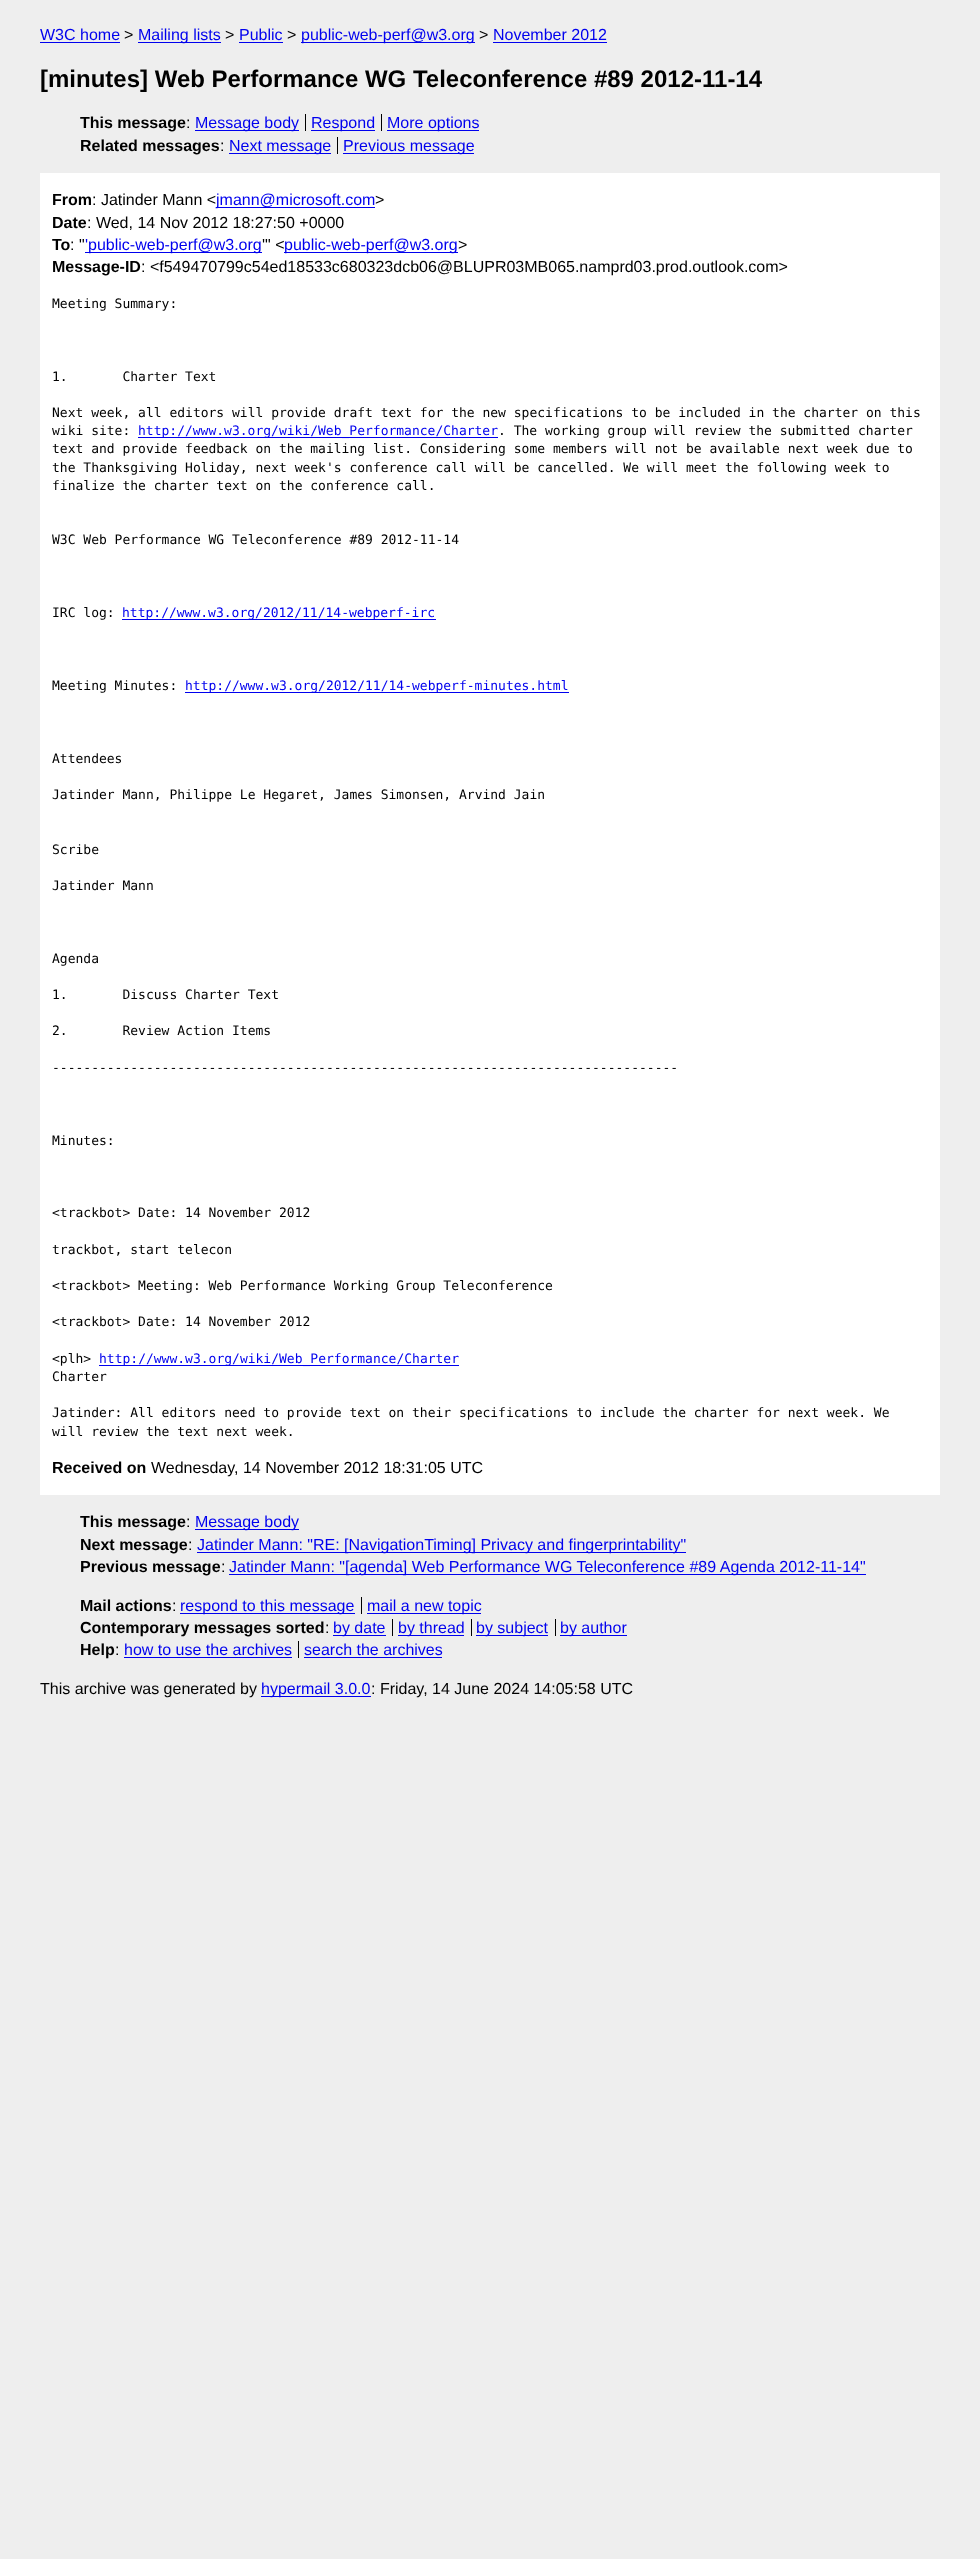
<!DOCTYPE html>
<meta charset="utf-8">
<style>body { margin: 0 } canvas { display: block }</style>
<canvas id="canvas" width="980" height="2559"></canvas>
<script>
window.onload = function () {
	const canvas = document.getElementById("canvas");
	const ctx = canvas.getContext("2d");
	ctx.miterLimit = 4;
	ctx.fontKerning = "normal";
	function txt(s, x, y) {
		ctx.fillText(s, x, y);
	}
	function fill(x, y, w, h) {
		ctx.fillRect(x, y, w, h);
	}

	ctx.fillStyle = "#EEEEEE";
	fill(0, 0, 980, 2559);
	ctx.fillStyle = "#0000EE";
	fill(40, 42, 80, 1);
	fill(138, 42, 83, 1);
	fill(239, 42, 44, 1);
	fill(301, 42, 174, 1);
	fill(493, 42, 114, 1);
	fill(195, 130, 104, 1);
	ctx.fillStyle = "#000000";
	fill(305, 114, 1, 17);
	ctx.fillStyle = "#0000EE";
	fill(311, 130, 64, 1);
	ctx.fillStyle = "#000000";
	fill(381, 114, 1, 17);
	ctx.fillStyle = "#0000EE";
	fill(387, 130, 92, 1);
	fill(229, 153, 102, 1);
	ctx.fillStyle = "#000000";
	fill(337, 137, 1, 17);
	ctx.fillStyle = "#0000EE";
	fill(343, 153, 131, 1);
	ctx.fillStyle = "#FFFFFF";
	fill(40, 173, 900, 1322);
	ctx.fillStyle = "#0000EE";
	fill(216, 207, 159, 1);
	fill(85, 252, 177, 1);
	fill(284, 252, 174, 1);
	fill(138, 437, 360, 1);
	fill(122, 619, 314, 1);
	fill(185, 692, 384, 1);
	fill(99, 1365, 360, 1);
	fill(195, 1529, 104, 1);
	fill(197, 1552, 489, 1);
	fill(229, 1574, 637, 1);
	fill(180, 1613, 175, 1);
	ctx.fillStyle = "#000000";
	fill(361, 1597, 1, 17);
	ctx.fillStyle = "#0000EE";
	fill(367, 1613, 114, 1);
	fill(333, 1635, 53, 1);
	ctx.fillStyle = "#000000";
	fill(392, 1619, 1, 17);
	ctx.fillStyle = "#0000EE";
	fill(398, 1635, 66, 1);
	ctx.fillStyle = "#000000";
	fill(471, 1619, 1, 17);
	ctx.fillStyle = "#0000EE";
	fill(476, 1635, 72, 1);
	ctx.fillStyle = "#000000";
	fill(555, 1619, 1, 17);
	ctx.fillStyle = "#0000EE";
	fill(560, 1635, 67, 1);
	fill(124, 1657, 168, 1);
	ctx.fillStyle = "#000000";
	fill(298, 1641, 1, 17);
	ctx.fillStyle = "#0000EE";
	fill(304, 1657, 138, 1);
	fill(261, 1696, 110, 1);
	ctx.font = "16px Liberation Sans";
	txt("W3C home", 40, 40);
	ctx.fillStyle = "#000000";
	txt(">", 124, 40);
	ctx.fillStyle = "#0000EE";
	txt("Mailing lists", 138, 40);
	ctx.fillStyle = "#000000";
	txt(">", 225, 40);
	ctx.fillStyle = "#0000EE";
	txt("Public", 239, 40);
	ctx.fillStyle = "#000000";
	txt(">", 287, 40);
	ctx.fillStyle = "#0000EE";
	txt("public-web-perf@w3.org", 301, 40);
	ctx.fillStyle = "#000000";
	txt(">", 479, 40);
	ctx.fillStyle = "#0000EE";
	txt("November 2012", 493, 40);
	ctx.font = "bold 24px Liberation Sans";
	ctx.fillStyle = "#000000";
	txt("[minutes] Web Performance WG Teleconference #89 2012-11-14", 40, 87);
	ctx.font = "bold 16px Liberation Sans";
	txt("This message", 80, 128);
	ctx.font = "16px Liberation Sans";
	txt(":", 186, 128);
	ctx.fillStyle = "#0000EE";
	txt("Message body", 195, 128);
	txt("Respond", 311, 128);
	txt("More options", 387, 128);
	ctx.font = "bold 16px Liberation Sans";
	ctx.fillStyle = "#000000";
	txt("Related messages", 80, 151);
	ctx.font = "16px Liberation Sans";
	txt(":", 220, 151);
	ctx.fillStyle = "#0000EE";
	txt("Next message", 229, 151);
	txt("Previous message", 343, 151);
	ctx.font = "bold 16px Liberation Sans";
	ctx.fillStyle = "#000000";
	txt("From", 52, 205);
	ctx.font = "16px Liberation Sans";
	txt(": Jatinder Mann <", 92, 205);
	ctx.fillStyle = "#0000EE";
	txt("jmann@microsoft.com", 216, 205);
	ctx.fillStyle = "#000000";
	txt(">", 375, 205);
	ctx.font = "bold 16px Liberation Sans";
	txt("Date", 52, 228);
	ctx.font = "16px Liberation Sans";
	txt(": Wed, 14 Nov 2012 18:27:50 +0000", 87, 228);
	ctx.font = "bold 16px Liberation Sans";
	txt("To", 52, 250);
	ctx.font = "16px Liberation Sans";
	txt(": \"", 70, 250);
	ctx.fillStyle = "#0000EE";
	txt("'public-web-perf@w3.org", 85, 250);
	ctx.fillStyle = "#000000";
	txt("'\" <", 262, 250);
	ctx.fillStyle = "#0000EE";
	txt("public-web-perf@w3.org", 284, 250);
	ctx.fillStyle = "#000000";
	txt(">", 458, 250);
	ctx.font = "bold 16px Liberation Sans";
	txt("Message-ID", 52, 272);
	ctx.font = "16px Liberation Sans";
	txt(": <f549470799c54ed18533c680323dcb06@BLUPR03MB065.namprd03.prod.outlook.com>", 141, 272);
	ctx.font = "13px DejaVu Sans Mono";
	txt("Meeting Summary:", 52, 308);
	txt("1.       Charter Text", 52, 381);
	txt("Next week, all editors will provide draft text for the new specifications to be included in the charter on this", 52, 417);
	txt("wiki site:", 52, 435);
	ctx.fillStyle = "#0000EE";
	txt("http://www.w3.org/wiki/Web_Performance/Charter", 138, 435);
	ctx.fillStyle = "#000000";
	txt(". The working group will review the submitted charter", 498, 435);
	txt("text and provide feedback on the mailing list. Considering some members will not be available next week due to", 52, 453);
	txt("the Thanksgiving Holiday, next week's conference call will be cancelled. We will meet the following week to", 52, 472);
	txt("finalize the charter text on the conference call.", 52, 490);
	txt("W3C Web Performance WG Teleconference #89 2012-11-14", 52, 544);
	txt("IRC log:", 52, 617);
	ctx.fillStyle = "#0000EE";
	txt("http://www.w3.org/2012/11/14-webperf-irc", 122, 617);
	ctx.fillStyle = "#000000";
	txt("Meeting Minutes:", 52, 690);
	ctx.fillStyle = "#0000EE";
	txt("http://www.w3.org/2012/11/14-webperf-minutes.html", 185, 690);
	ctx.fillStyle = "#000000";
	txt("Attendees", 52, 763);
	txt("Jatinder Mann, Philippe Le Hegaret, James Simonsen, Arvind Jain", 52, 799);
	txt("Scribe", 52, 854);
	txt("Jatinder Mann", 52, 890);
	txt("Agenda", 52, 963);
	txt("1.       Discuss Charter Text", 52, 999);
	txt("2.       Review Action Items", 52, 1035);
	txt("--------------------------------------------------------------------------------", 52, 1072);
	txt("Minutes:", 52, 1145);
	txt("<trackbot> Date: 14 November 2012", 52, 1217);
	txt("trackbot, start telecon", 52, 1254);
	txt("<trackbot> Meeting: Web Performance Working Group Teleconference", 52, 1290);
	txt("<trackbot> Date: 14 November 2012", 52, 1326);
	txt("<plh>", 52, 1363);
	ctx.fillStyle = "#0000EE";
	txt("http://www.w3.org/wiki/Web_Performance/Charter", 99, 1363);
	ctx.fillStyle = "#000000";
	txt("Charter", 52, 1381);
	txt("Jatinder: All editors need to provide text on their specifications to include the charter for next week. We", 52, 1417);
	txt("will review the text next week.", 52, 1436);
	ctx.font = "bold 16px Liberation Sans";
	txt("Received on", 52, 1473);
	ctx.font = "16px Liberation Sans";
	txt("Wednesday, 14 November 2012 18:31:05 UTC", 151, 1473);
	ctx.font = "bold 16px Liberation Sans";
	txt("This message", 80, 1527);
	ctx.font = "16px Liberation Sans";
	txt(":", 186, 1527);
	ctx.fillStyle = "#0000EE";
	txt("Message body", 195, 1527);
	ctx.font = "bold 16px Liberation Sans";
	ctx.fillStyle = "#000000";
	txt("Next message", 80, 1550);
	ctx.font = "16px Liberation Sans";
	txt(":", 188, 1550);
	ctx.fillStyle = "#0000EE";
	txt("Jatinder Mann: \"RE: [NavigationTiming] Privacy and fingerprintability\"", 197, 1550);
	ctx.font = "bold 16px Liberation Sans";
	ctx.fillStyle = "#000000";
	txt("Previous message", 80, 1572);
	ctx.font = "16px Liberation Sans";
	txt(":", 221, 1572);
	ctx.fillStyle = "#0000EE";
	txt("Jatinder Mann: \"[agenda] Web Performance WG Teleconference #89 Agenda 2012-11-14\"", 229, 1572);
	ctx.font = "bold 16px Liberation Sans";
	ctx.fillStyle = "#000000";
	txt("Mail actions", 80, 1611);
	ctx.font = "16px Liberation Sans";
	txt(":", 172, 1611);
	ctx.fillStyle = "#0000EE";
	txt("respond to this message", 180, 1611);
	txt("mail a new topic", 367, 1611);
	ctx.font = "bold 16px Liberation Sans";
	ctx.fillStyle = "#000000";
	txt("Contemporary messages sorted", 80, 1633);
	ctx.font = "16px Liberation Sans";
	txt(":", 325, 1633);
	ctx.fillStyle = "#0000EE";
	txt("by date", 333, 1633);
	txt("by thread", 398, 1633);
	txt("by subject", 476, 1633);
	txt("by author", 560, 1633);
	ctx.font = "bold 16px Liberation Sans";
	ctx.fillStyle = "#000000";
	txt("Help", 80, 1655);
	ctx.font = "16px Liberation Sans";
	txt(":", 115, 1655);
	ctx.fillStyle = "#0000EE";
	txt("how to use the archives", 124, 1655);
	txt("search the archives", 304, 1655);
	ctx.fillStyle = "#000000";
	txt("This archive was generated by", 40, 1694);
	ctx.fillStyle = "#0000EE";
	txt("hypermail 3.0.0", 261, 1694);
	ctx.fillStyle = "#000000";
	txt(": Friday, 14 June 2024 14:05:58 UTC", 371, 1694);
};
</script>
